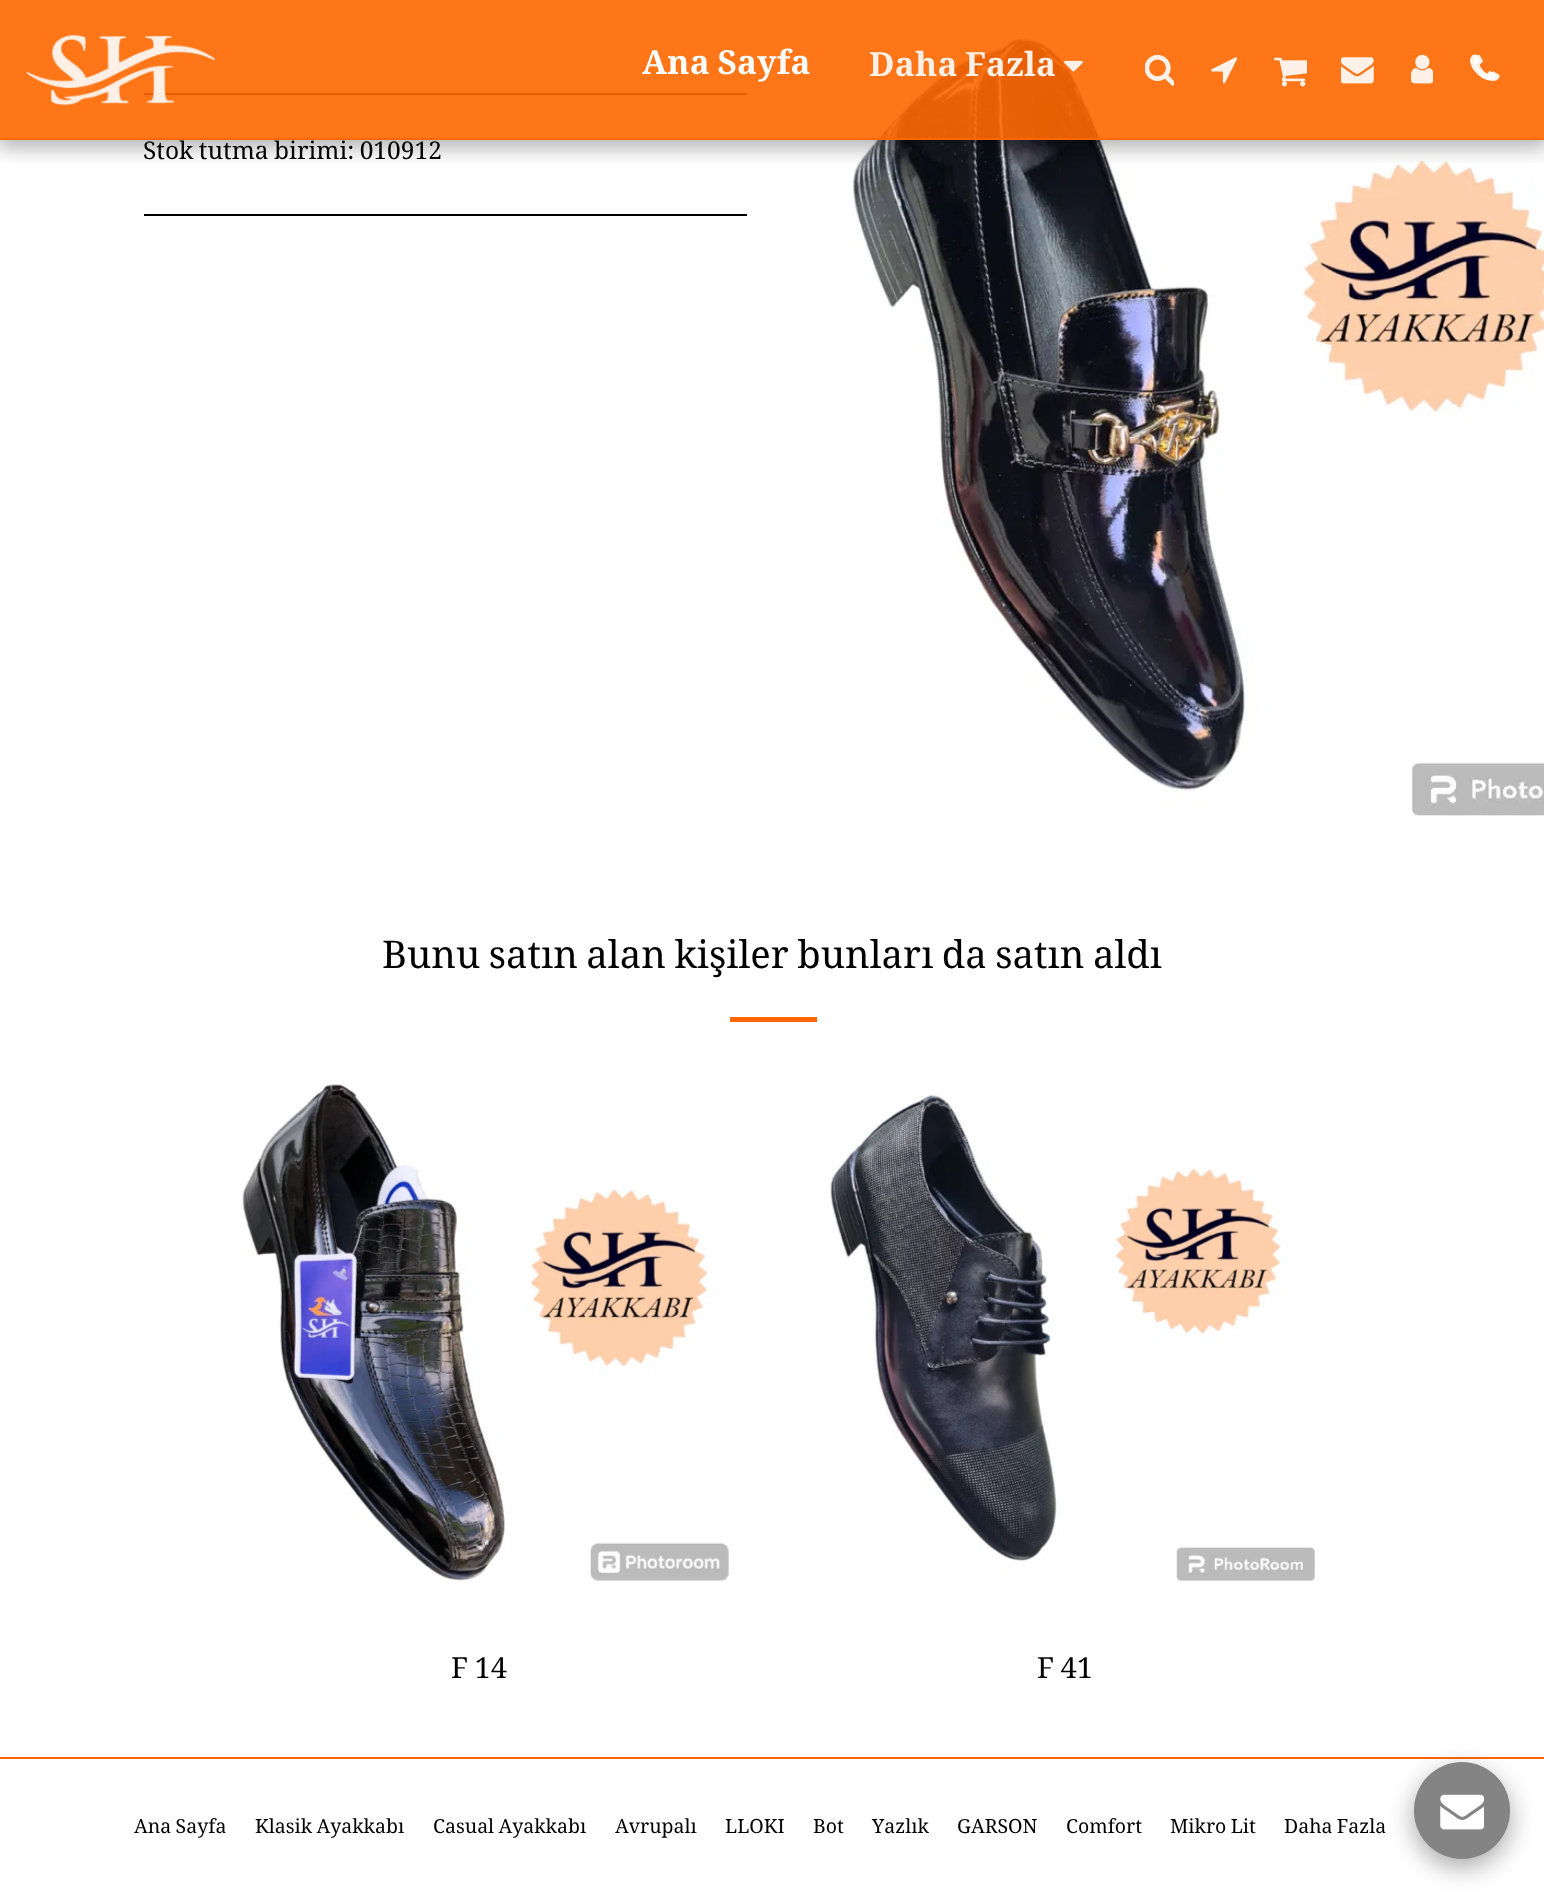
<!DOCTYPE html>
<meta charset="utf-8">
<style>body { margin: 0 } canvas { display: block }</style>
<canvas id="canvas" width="1544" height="1893"></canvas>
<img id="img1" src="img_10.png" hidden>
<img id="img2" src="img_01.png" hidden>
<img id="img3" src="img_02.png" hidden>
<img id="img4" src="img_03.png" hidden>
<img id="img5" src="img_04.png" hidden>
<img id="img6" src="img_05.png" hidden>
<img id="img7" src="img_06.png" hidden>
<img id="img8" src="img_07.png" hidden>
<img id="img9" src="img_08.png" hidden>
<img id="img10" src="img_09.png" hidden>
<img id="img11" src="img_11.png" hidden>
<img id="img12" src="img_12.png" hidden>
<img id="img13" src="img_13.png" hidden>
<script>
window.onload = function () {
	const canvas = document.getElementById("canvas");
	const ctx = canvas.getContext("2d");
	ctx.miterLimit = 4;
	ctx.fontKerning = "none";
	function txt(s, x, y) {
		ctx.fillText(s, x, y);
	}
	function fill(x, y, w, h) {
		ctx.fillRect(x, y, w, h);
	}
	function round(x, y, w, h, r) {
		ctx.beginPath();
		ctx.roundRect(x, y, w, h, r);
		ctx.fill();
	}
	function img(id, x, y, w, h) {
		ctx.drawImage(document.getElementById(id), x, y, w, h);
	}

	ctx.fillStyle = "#FF6700";
	fill(0, 0, 1544, 1893);
	ctx.fillStyle = "#FFFFFF";
	fill(0, 0, 1544, 1757);
	ctx.fillStyle = "#000000";
	fill(144, 93, 603, 2);
	img("img1", 852, 36, 692, 780);
	ctx.save();
	ctx.beginPath();
	ctx.rect(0, 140, 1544, 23);
	ctx.clip();
	ctx.fillStyle = "rgba(0, 0, 0, 0.32)";
	ctx.filter = "blur(10.5px)";
	ctx.beginPath();
	ctx.rect(-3, 0, 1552, 147);
	ctx.fill();
	ctx.filter = "none";
	ctx.restore();
	ctx.fillStyle = "rgba(255, 103, 0, 0.9)";
	fill(0, 0, 1544, 140);
	fill(0, 138, 1544, 2);
	img("img2", 26, 34, 190, 71);
	img("img3", 1064, 60, 19, 12);
	img("img4", 1145, 54, 29, 32);
	img("img5", 1211, 57, 26, 27);
	img("img6", 1274, 57, 33, 30);
	img("img7", 1341, 57, 33, 27);
	img("img8", 1411, 54, 22, 30);
	img("img9", 1474, 54, 26, 27);
	img("img10", 1470, 54, 26, 27);
	ctx.fillStyle = "#000000";
	fill(144, 214, 603, 2);
	ctx.fillStyle = "#FF6700";
	fill(730, 1017, 87, 5);
	img("img11", 242, 1083, 487, 498);
	img("img12", 830, 1094, 485, 487);
	ctx.fillStyle = "#FFFFFF";
	fill(0, 1759, 1544, 134);
	ctx.fillStyle = "rgba(0, 0, 0, 0.35)";
	ctx.filter = "blur(13px)";
	ctx.beginPath();
	ctx.roundRect(1414, 1771, 96, 96, 48);
	ctx.fill();
	ctx.filter = "none";
	ctx.fillStyle = "#848484";
	round(1414, 1762, 96, 97, 48);
	img("img13", 1440, 1794, 44, 36);
	ctx.letterSpacing = "0.25px";
	ctx.font = "bold 33.25px Noto Naskh Arabic";
	ctx.fillStyle = "#FFFFFF";
	txt("Ana Sayfa", 642, 74);
	ctx.fillStyle = "#FEF0E7";
	txt("Daha Fazla", 869, 76);
	ctx.letterSpacing = "0px";
	ctx.font = "24.5px Noto Naskh Arabic";
	ctx.fillStyle = "#000000";
	txt("Stok tutma birimi: 010912", 143, 159);
	ctx.font = "38.25px Noto Naskh Arabic";
	txt("Bunu satın alan kişiler bunları da satın aldı", 382, 968);
	ctx.font = "29px Noto Naskh Arabic";
	txt("F 14", 451, 1678);
	txt("F 41", 1037, 1678);
	ctx.font = "19.5px Noto Naskh Arabic";
	txt("Ana Sayfa", 134, 1833);
	txt("Klasik Ayakkabı", 255, 1833);
	txt("Casual Ayakkabı", 433, 1833);
	txt("Avrupalı", 615, 1833);
	txt("LLOKI", 725, 1833);
	txt("Bot", 813, 1833);
	txt("Yazlık", 872, 1833);
	txt("GARSON", 957, 1833);
	txt("Comfort", 1066, 1833);
	txt("Mikro Lit", 1170, 1833);
	txt("Daha Fazla", 1284, 1833);
};
</script>
